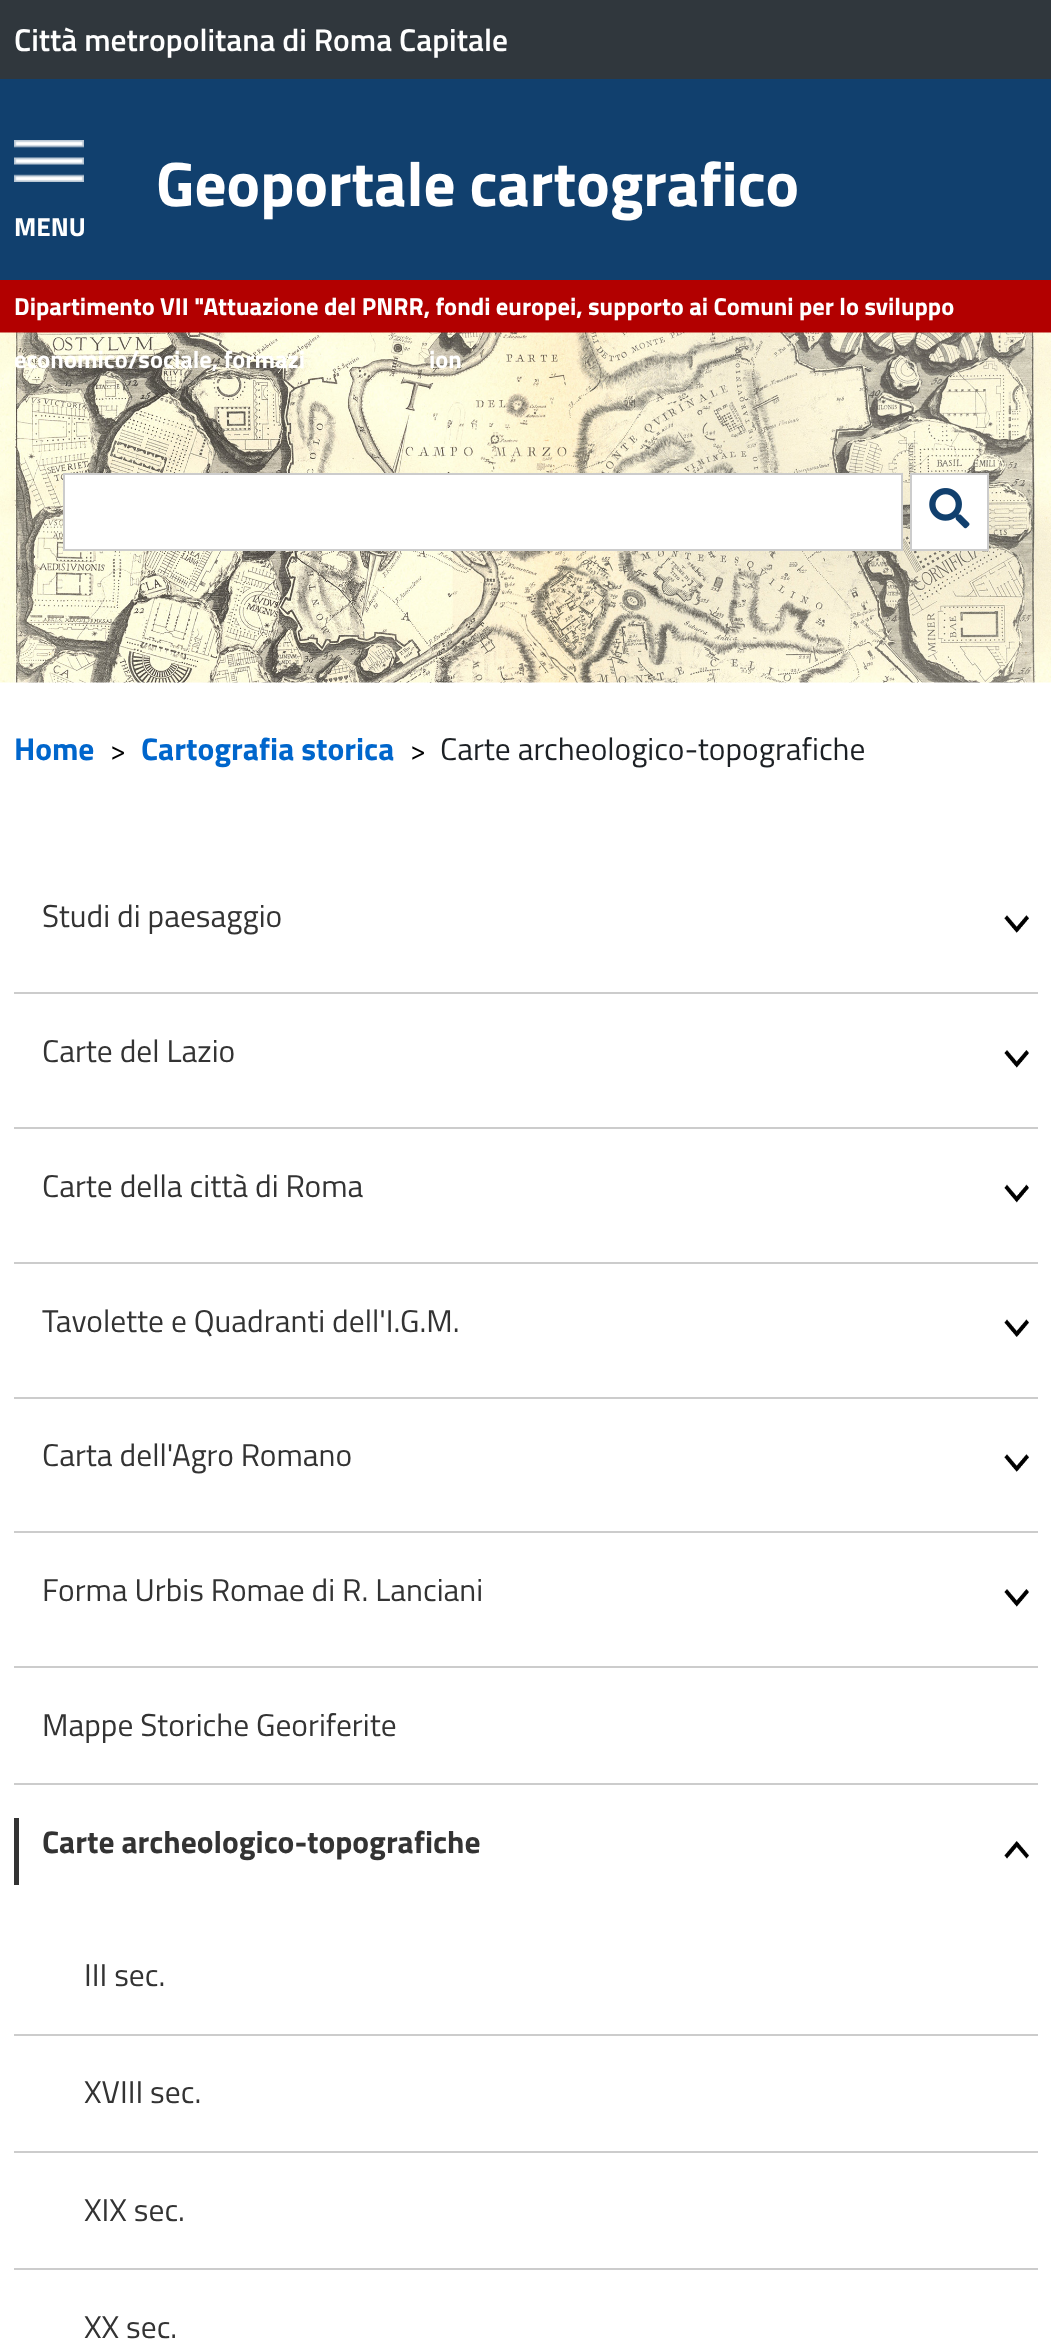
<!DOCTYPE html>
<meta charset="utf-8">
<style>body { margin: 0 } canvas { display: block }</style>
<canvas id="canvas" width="1051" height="2341"></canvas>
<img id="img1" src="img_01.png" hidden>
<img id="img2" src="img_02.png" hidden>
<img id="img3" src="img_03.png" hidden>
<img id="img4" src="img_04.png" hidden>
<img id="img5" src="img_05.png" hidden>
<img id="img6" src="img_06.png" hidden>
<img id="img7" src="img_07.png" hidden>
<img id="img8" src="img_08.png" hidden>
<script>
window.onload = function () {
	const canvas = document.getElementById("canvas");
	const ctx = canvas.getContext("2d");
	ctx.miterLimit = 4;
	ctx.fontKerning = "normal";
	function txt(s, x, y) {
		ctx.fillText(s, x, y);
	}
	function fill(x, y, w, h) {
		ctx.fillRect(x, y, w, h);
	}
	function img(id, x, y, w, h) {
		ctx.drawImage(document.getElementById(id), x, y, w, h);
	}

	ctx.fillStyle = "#FFFFFF";
	fill(0, 0, 1051, 2341);
	ctx.fillStyle = "#30373D";
	fill(0, 0, 1051, 79);
	ctx.fillStyle = "#11406E";
	fill(0, 79, 1051, 201);
	img("img1", 14, 140, 70, 42);
	ctx.fillStyle = "#B20000";
	fill(0, 280, 1051, 53);
	img("img2", 0, 332, 1051, 351);
	ctx.fillStyle = "#FFFFFF";
	ctx.beginPath();
	ctx.rect(64, 474, 838, 76);
	ctx.fill();
	ctx.strokeStyle = "#CCCCCC";
	ctx.lineWidth = 2;
	ctx.stroke();
	ctx.beginPath();
	ctx.rect(911, 474, 77, 76);
	ctx.fill();
	ctx.stroke();
	img("img3", 929, 488, 41, 41);
	ctx.fillStyle = "#CCCCCC";
	fill(14, 992, 1024, 2);
	img("img4", 1004, 915, 25, 18);
	fill(14, 1127, 1024, 2);
	img("img5", 1004, 1050, 25, 18);
	fill(14, 1262, 1024, 2);
	img("img6", 1004, 1184, 25, 19);
	fill(14, 1397, 1024, 2);
	img("img7", 1004, 1319, 25, 18);
	fill(14, 1531, 1024, 2);
	img("img4", 1004, 1454, 25, 18);
	fill(14, 1666, 1024, 2);
	img("img5", 1004, 1589, 25, 18);
	fill(14, 1783, 1024, 2);
	ctx.fillStyle = "#333333";
	fill(14, 1818, 5, 67);
	img("img8", 1004, 1841, 25, 18);
	ctx.fillStyle = "#CCCCCC";
	fill(14, 2034, 1024, 2);
	fill(14, 2151, 1024, 2);
	fill(14, 2268, 1024, 2);
	ctx.font = "600 31.5px Titillium Web";
	ctx.fillStyle = "#FFFFFF";
	txt("Città metropolitana di Roma Capitale", 14, 51);
	ctx.font = "bold 63px Titillium Web";
	txt("Geoportale cartografico", 156, 206);
	ctx.font = "bold 26px Titillium Web";
	txt("MENU", 14, 236);
	ctx.font = "bold 24.5px Titillium Web";
	txt("Dipartimento VII \"Attuazione del PNRR, fondi europei, supporto ai Comuni per lo sviluppo", 14, 315);
	txt("economico/sociale, formazi", 14, 368);
	txt("ion", 429, 368);
	ctx.font = "bold 31.5px Titillium Web";
	ctx.fillStyle = "#0066CC";
	txt("Home", 14, 760);
	ctx.font = "28px Titillium Web";
	ctx.fillStyle = "#000000";
	txt(">", 110, 760);
	ctx.font = "bold 31.5px Titillium Web";
	ctx.fillStyle = "#0066CC";
	txt("Cartografia storica", 141, 760);
	ctx.font = "28px Titillium Web";
	ctx.fillStyle = "#000000";
	txt(">", 410, 760);
	ctx.font = "31.5px Titillium Web";
	ctx.fillStyle = "#1C2024";
	txt("Carte archeologico-topografiche", 440, 760);
	ctx.fillStyle = "#333333";
	txt("Studi di paesaggio", 42, 927);
	txt("Carte del Lazio", 42, 1062);
	txt("Carte della città di Roma", 42, 1197);
	txt("Tavolette e Quadranti dell'I.G.M.", 42, 1332);
	txt("Carta dell'Agro Romano", 42, 1466);
	txt("Forma Urbis Romae di R. Lanciani", 42, 1601);
	txt("Mappe Storiche Georiferite", 42, 1736);
	ctx.font = "bold 31.5px Titillium Web";
	txt("Carte archeologico-topografiche", 42, 1853);
	ctx.font = "31.5px Titillium Web";
	txt("III sec.", 84, 1986);
	txt("XVIII sec.", 84, 2103);
	txt("XIX sec.", 84, 2221);
	txt("XX sec.", 84, 2338);
};
</script>
